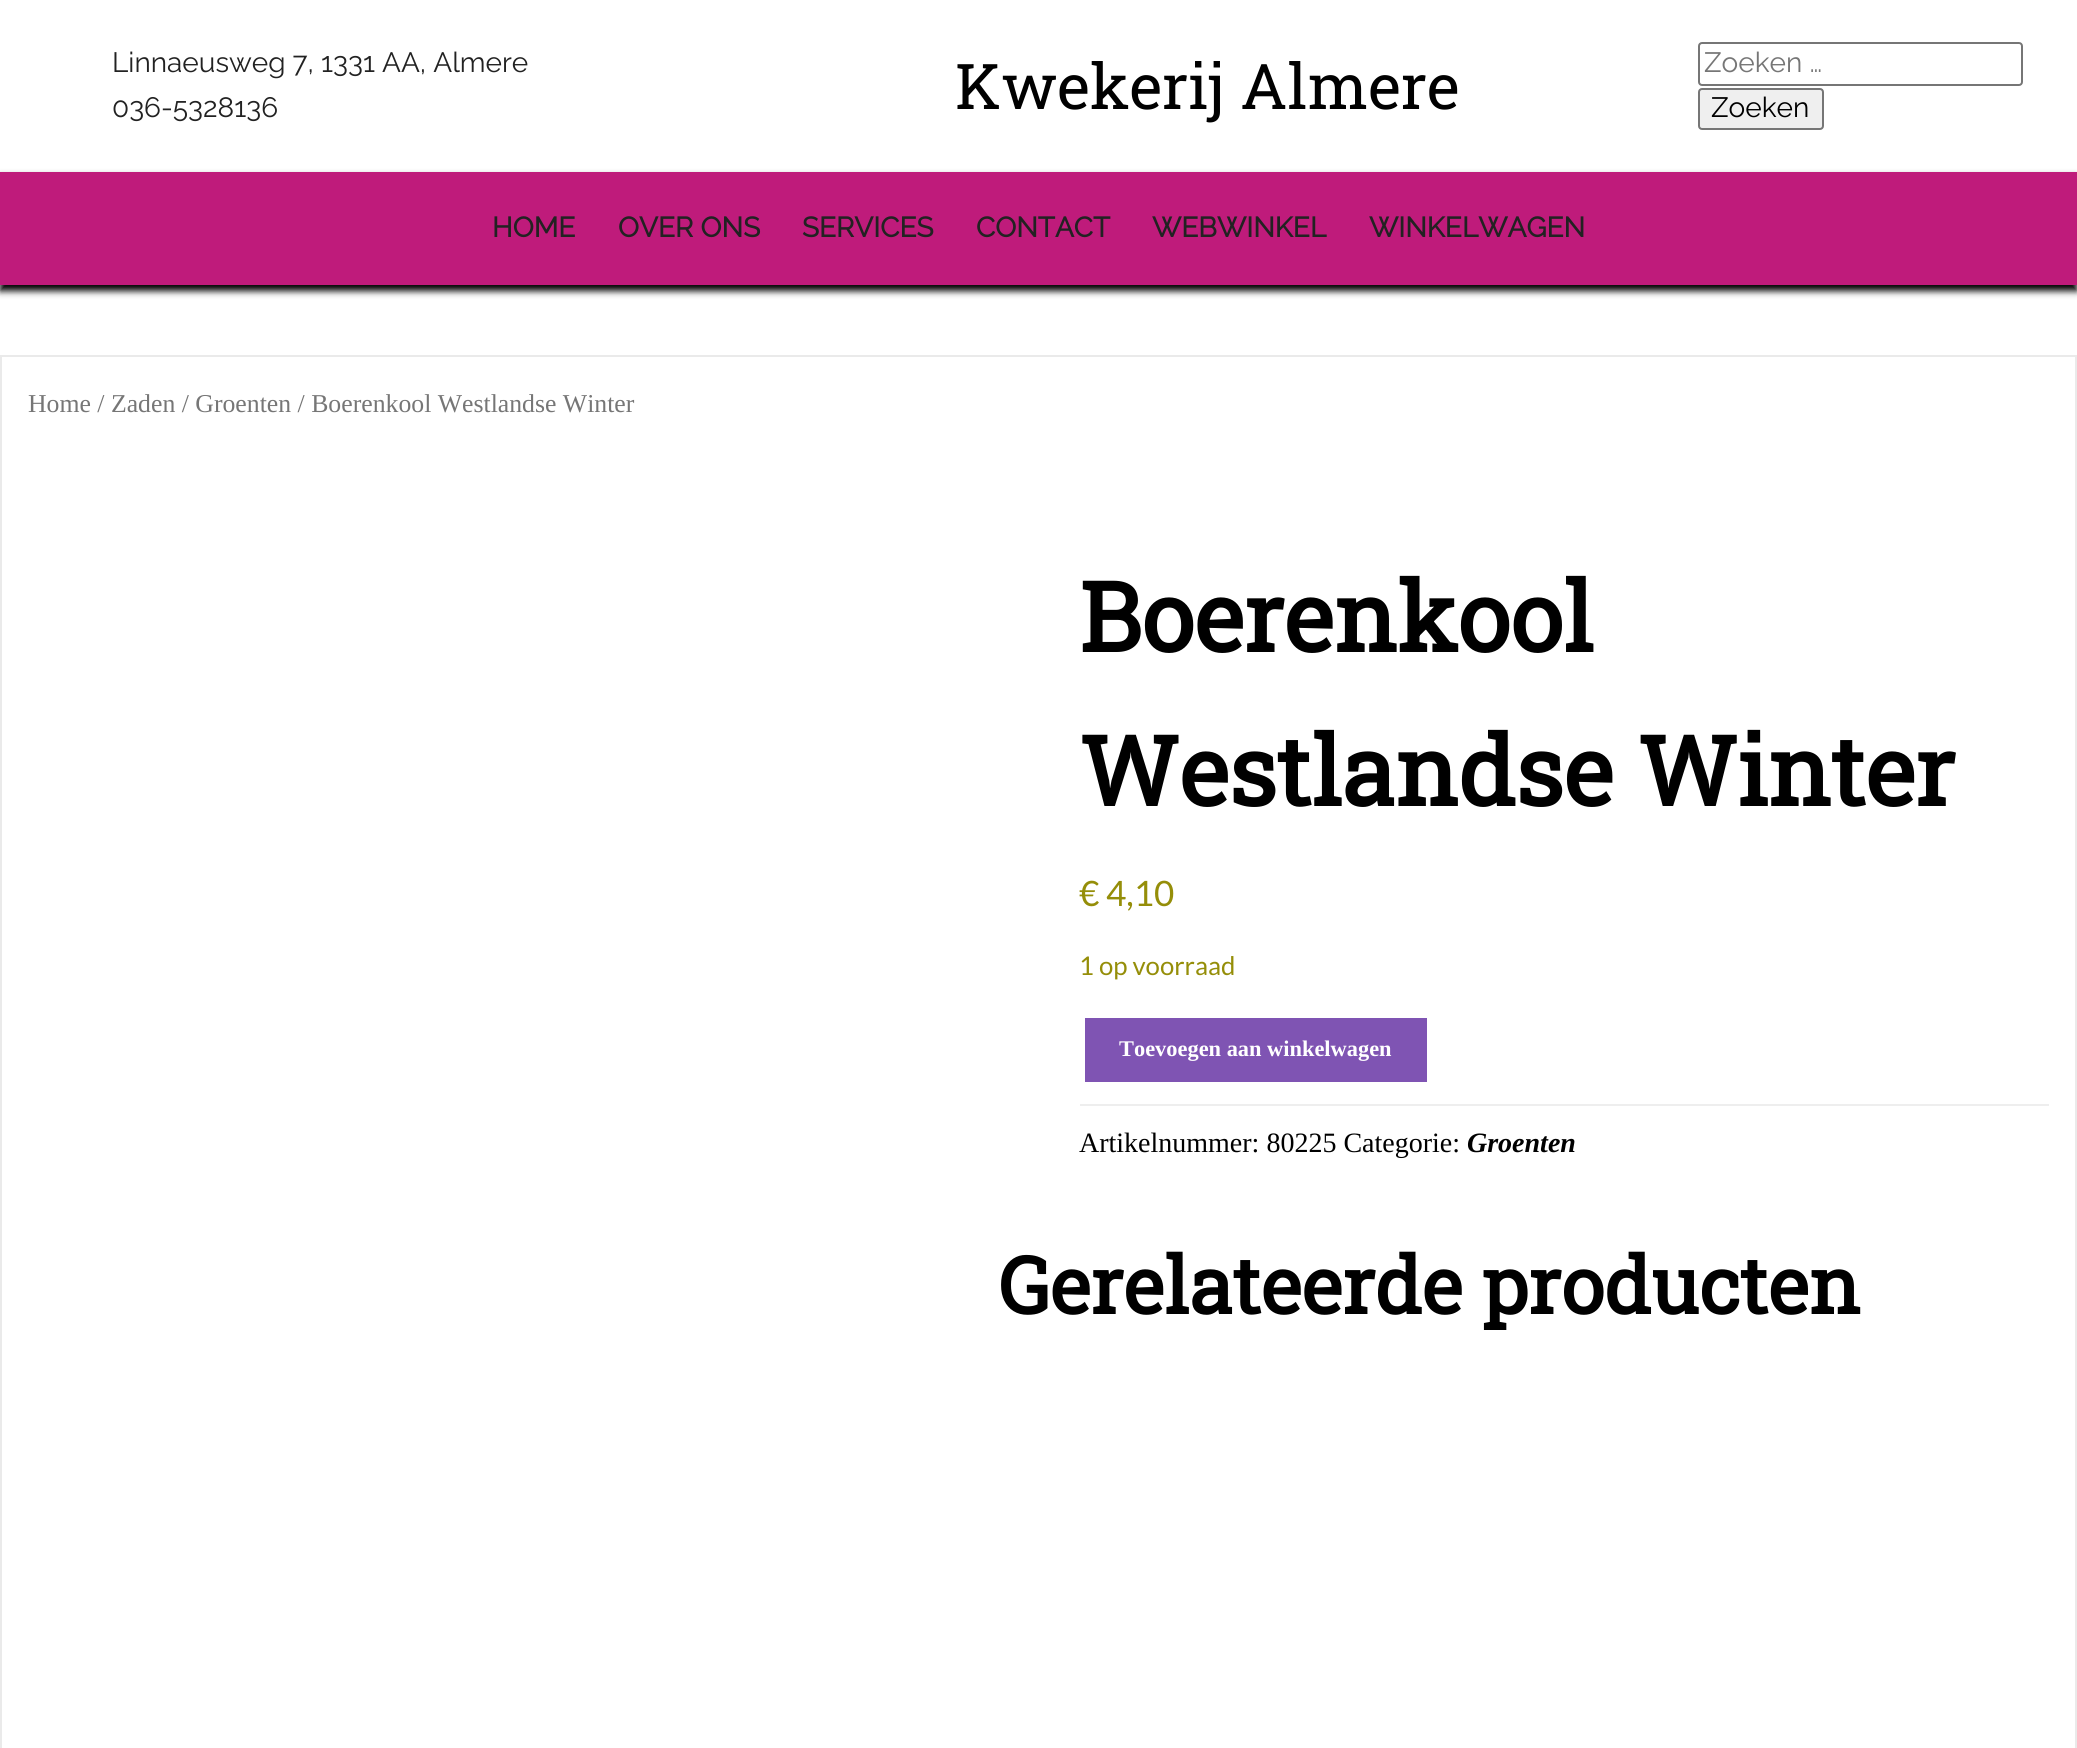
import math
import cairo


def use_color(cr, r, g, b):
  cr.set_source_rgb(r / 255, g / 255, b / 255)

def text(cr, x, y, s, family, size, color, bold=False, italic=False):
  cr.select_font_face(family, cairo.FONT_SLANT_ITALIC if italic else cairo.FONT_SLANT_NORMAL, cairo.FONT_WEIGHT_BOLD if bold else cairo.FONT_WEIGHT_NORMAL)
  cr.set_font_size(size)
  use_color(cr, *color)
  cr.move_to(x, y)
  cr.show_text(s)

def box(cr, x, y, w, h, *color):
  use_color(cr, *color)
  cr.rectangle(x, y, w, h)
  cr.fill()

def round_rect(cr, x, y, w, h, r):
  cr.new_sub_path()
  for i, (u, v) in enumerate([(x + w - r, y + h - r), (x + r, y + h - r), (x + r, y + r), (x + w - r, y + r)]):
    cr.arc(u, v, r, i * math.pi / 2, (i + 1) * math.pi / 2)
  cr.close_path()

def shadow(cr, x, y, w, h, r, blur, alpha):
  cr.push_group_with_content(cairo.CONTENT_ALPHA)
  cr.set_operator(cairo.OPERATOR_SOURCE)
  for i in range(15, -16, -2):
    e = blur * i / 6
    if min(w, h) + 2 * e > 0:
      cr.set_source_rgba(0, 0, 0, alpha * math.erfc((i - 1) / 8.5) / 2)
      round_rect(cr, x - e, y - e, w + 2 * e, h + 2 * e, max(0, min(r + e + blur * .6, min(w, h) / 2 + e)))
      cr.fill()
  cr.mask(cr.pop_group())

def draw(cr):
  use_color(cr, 255, 255, 255)
  cr.paint()
  round_rect(cr, 1699, 43, 323, 42, 3)
  use_color(cr, 118, 118, 118)
  cr.stroke()
  use_color(cr, 239, 239, 239)
  round_rect(cr, 1699, 89, 124, 40, 3)
  cr.fill_preserve()
  use_color(cr, 118, 118, 118)
  cr.stroke()
  use_color(cr, 0, 0, 0)
  shadow(cr, 0, 177, 2077, 114, 0, 3.5, 1)
  box(cr, 0, 172, 2077, 113, 191, 27, 123)
  cr.rectangle(1, 356, 2075, 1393)
  use_color(cr, 234, 234, 234)
  cr.stroke()
  box(cr, 1080, 1104, 969, 2, 238, 238, 238)
  use_color(cr, 127, 84, 179)
  round_rect(cr, 1082.5, 1015.5, 347, 69, 2.5)
  cr.fill_preserve()
  use_color(cr, 255, 255, 255)
  cr.set_line_width(5)
  cr.stroke()
  text(cr, 112, 72, "Linnaeusweg 7, 1331 AA, Almere", "Raleway Thin", 28, (34, 34, 34))
  text(cr, 112, 117, "036-5328136", "Raleway Thin", 28, (34, 34, 34))
  text(cr, 955, 109, "Kwekerij Almere", "Roboto Slab", 63, (0, 0, 0))
  text(cr, 1704, 72, "Zoeken …", "Raleway Thin", 28, (118, 118, 118))
  text(cr, 1711, 117, "Zoeken", "Raleway Thin", 28, (0, 0, 0))
  text(cr, 492, 237, "HOME", "Raleway", 28, (34, 34, 34), bold=True)
  text(cr, 618, 237, "OVER ONS", "Raleway", 28, (34, 34, 34), bold=True)
  text(cr, 802, 237, "SERVICES", "Raleway", 28, (34, 34, 34), bold=True)
  text(cr, 976, 237, "CONTACT", "Raleway", 28, (34, 34, 34), bold=True)
  text(cr, 1152, 237, "WEBWINKEL", "Raleway", 28, (34, 34, 34), bold=True)
  text(cr, 1369, 237, "WINKELWAGEN", "Raleway", 28, (34, 34, 34), bold=True)
  text(cr, 28, 412, "Home / Zaden / Groenten / Boerenkool Westlandse Winter", "Liberation Serif", 25.75, (118, 118, 118))
  text(cr, 1079, 652, "Boerenkool", "Roboto Slab", 96.25, (0, 0, 0), bold=True)
  text(cr, 1079, 806, "Westlandse Winter", "Roboto Slab", 96.25, (0, 0, 0), bold=True)
  text(cr, 1079, 906, "€ 4,10", "Lato", 35, (149, 142, 9))
  text(cr, 1079, 975, "1 op voorraad", "Lato", 25.75, (149, 142, 9))
  text(cr, 1119, 1056, "Toevoegen aan winkelwagen", "Liberation Serif", 22.4, (255, 255, 255), bold=True)
  text(cr, 1079, 1152, "Artikelnummer: 80225 Categorie:", "Liberation Serif", 28, (0, 0, 0))
  text(cr, 1467, 1152, "Groenten", "Liberation Serif", 28, (0, 0, 0), bold=True, italic=True)
  text(cr, 998, 1314, "Gerelateerde producten", "Roboto Slab", 78.75, (0, 0, 0), bold=True)


surface = cairo.ImageSurface(cairo.FORMAT_RGB24, 2077, 1748)
cr = cairo.Context(surface)
options = cairo.FontOptions()
options.set_hint_metrics(cairo.HINT_METRICS_OFF)
options.set_hint_style(cairo.HINT_STYLE_NONE)
cr.set_font_options(options)
cr.set_miter_limit(4)
draw(cr)
surface.write_to_png("out.png")
